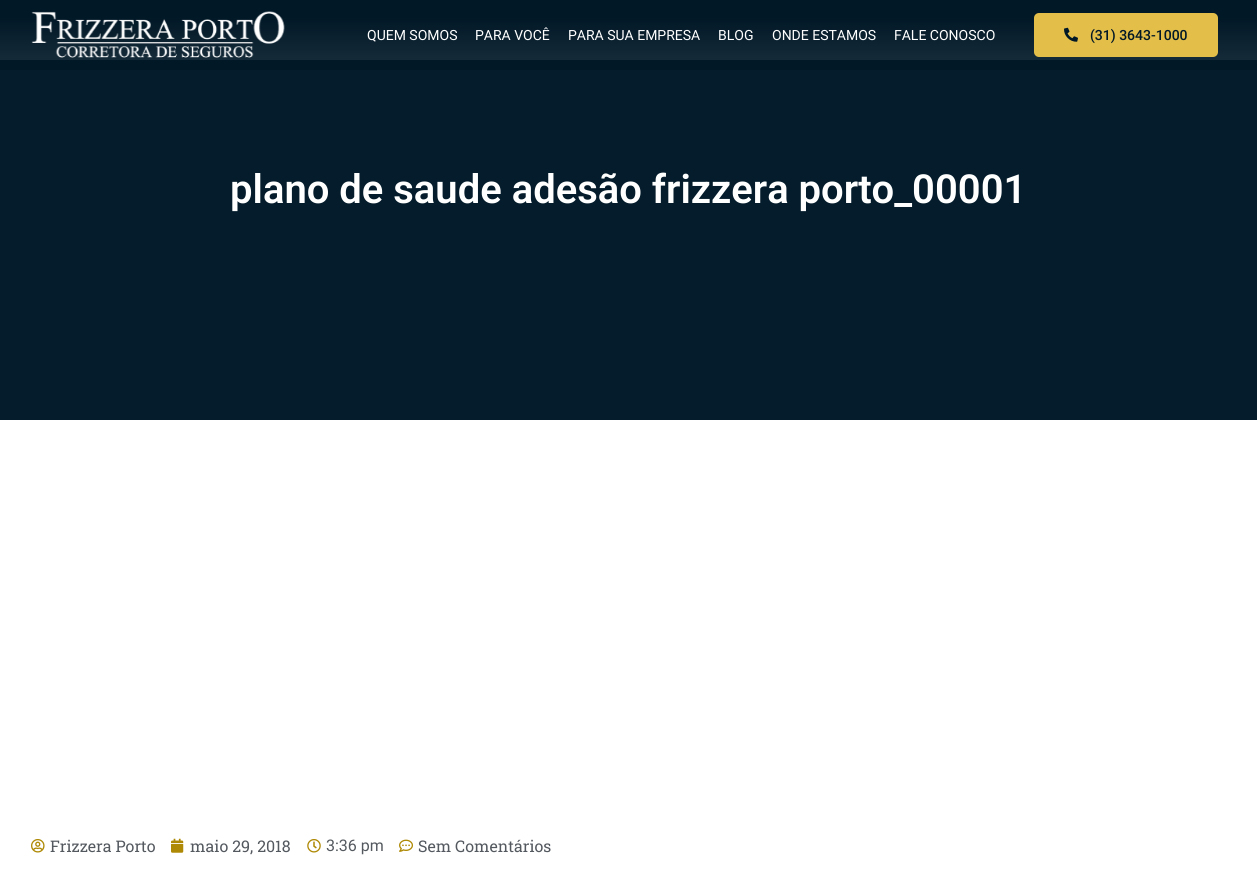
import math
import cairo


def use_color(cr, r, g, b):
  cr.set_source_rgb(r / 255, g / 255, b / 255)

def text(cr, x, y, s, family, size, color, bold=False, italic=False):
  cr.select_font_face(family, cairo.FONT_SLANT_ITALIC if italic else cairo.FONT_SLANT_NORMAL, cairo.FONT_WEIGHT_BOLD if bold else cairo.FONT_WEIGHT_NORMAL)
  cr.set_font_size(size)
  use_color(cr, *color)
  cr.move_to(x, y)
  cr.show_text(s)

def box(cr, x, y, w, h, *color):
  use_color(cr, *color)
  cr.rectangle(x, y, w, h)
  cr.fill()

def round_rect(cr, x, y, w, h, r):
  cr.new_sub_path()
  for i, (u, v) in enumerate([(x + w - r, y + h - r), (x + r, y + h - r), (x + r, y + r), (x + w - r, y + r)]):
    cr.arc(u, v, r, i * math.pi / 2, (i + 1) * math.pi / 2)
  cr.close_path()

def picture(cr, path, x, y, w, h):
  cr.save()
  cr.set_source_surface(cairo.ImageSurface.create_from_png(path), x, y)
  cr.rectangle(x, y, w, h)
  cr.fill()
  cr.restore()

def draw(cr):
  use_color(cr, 255, 255, 255)
  cr.paint()
  box(cr, 0, 19, 1257, 41, 26, 47, 61)
  gradient = cairo.LinearGradient(629, 0, 629, 70)
  gradient.add_color_stop_rgba(0.26, 0.004, 0.094, 0.153, 1)
  gradient.add_color_stop_rgba(1, 0.004, 0.094, 0.153, 0)
  cr.set_source(gradient)
  cr.rectangle(0, 0, 1257, 60)
  cr.fill()
  picture(cr, "img_01.png", 31, 11, 254, 47)
  use_color(cr, 227, 190, 72)
  round_rect(cr, 1034, 13, 184, 44, 5)
  cr.fill()
  picture(cr, "img_02.png", 1064, 27, 14, 15)
  box(cr, 0, 70, 1257, 350, 4, 28, 43)
  box(cr, 0, 60, 1257, 10, 1, 24, 39)
  picture(cr, "img_03.png", 31, 839, 14, 14)
  picture(cr, "img_04.png", 171, 838, 13, 15)
  picture(cr, "img_05.png", 307, 839, 14, 14)
  picture(cr, "img_06.png", 399, 839, 14, 13)
  text(cr, 367, 40, "QUEM SOMOS", "Roboto", 14, (255, 255, 255))
  text(cr, 475, 40, "PARA VOCÊ", "Roboto", 14, (255, 255, 255))
  text(cr, 568, 40, "PARA SUA EMPRESA", "Roboto", 14, (255, 255, 255))
  text(cr, 718, 40, "BLOG", "Roboto", 14, (255, 255, 255))
  text(cr, 772, 40, "ONDE ESTAMOS", "Roboto", 14, (255, 255, 255))
  text(cr, 894, 40, "FALE CONOSCO", "Roboto", 14, (255, 255, 255))
  text(cr, 1090, 40, "(31) 3643-1000", "Roboto Medium", 14, (1, 24, 39))
  text(cr, 230, 203, "plano de saude adesão frizzera porto_00001", "Roboto SemiBold", 40, (255, 255, 255))
  text(cr, 50, 852, "Frizzera Porto", "Roboto Slab", 16, (84, 89, 95))
  text(cr, 190, 852, "maio 29, 2018", "Roboto Slab", 16, (84, 89, 95))
  text(cr, 326, 851, "3:36 pm", "Roboto", 16, (84, 89, 95))
  text(cr, 418, 852, "Sem Comentários", "Roboto Slab", 16, (84, 89, 95))


surface = cairo.ImageSurface(cairo.FORMAT_RGB24, 1257, 881)
cr = cairo.Context(surface)
options = cairo.FontOptions()
options.set_hint_metrics(cairo.HINT_METRICS_OFF)
options.set_hint_style(cairo.HINT_STYLE_NONE)
cr.set_font_options(options)
cr.set_miter_limit(4)
draw(cr)
surface.write_to_png("out.png")
